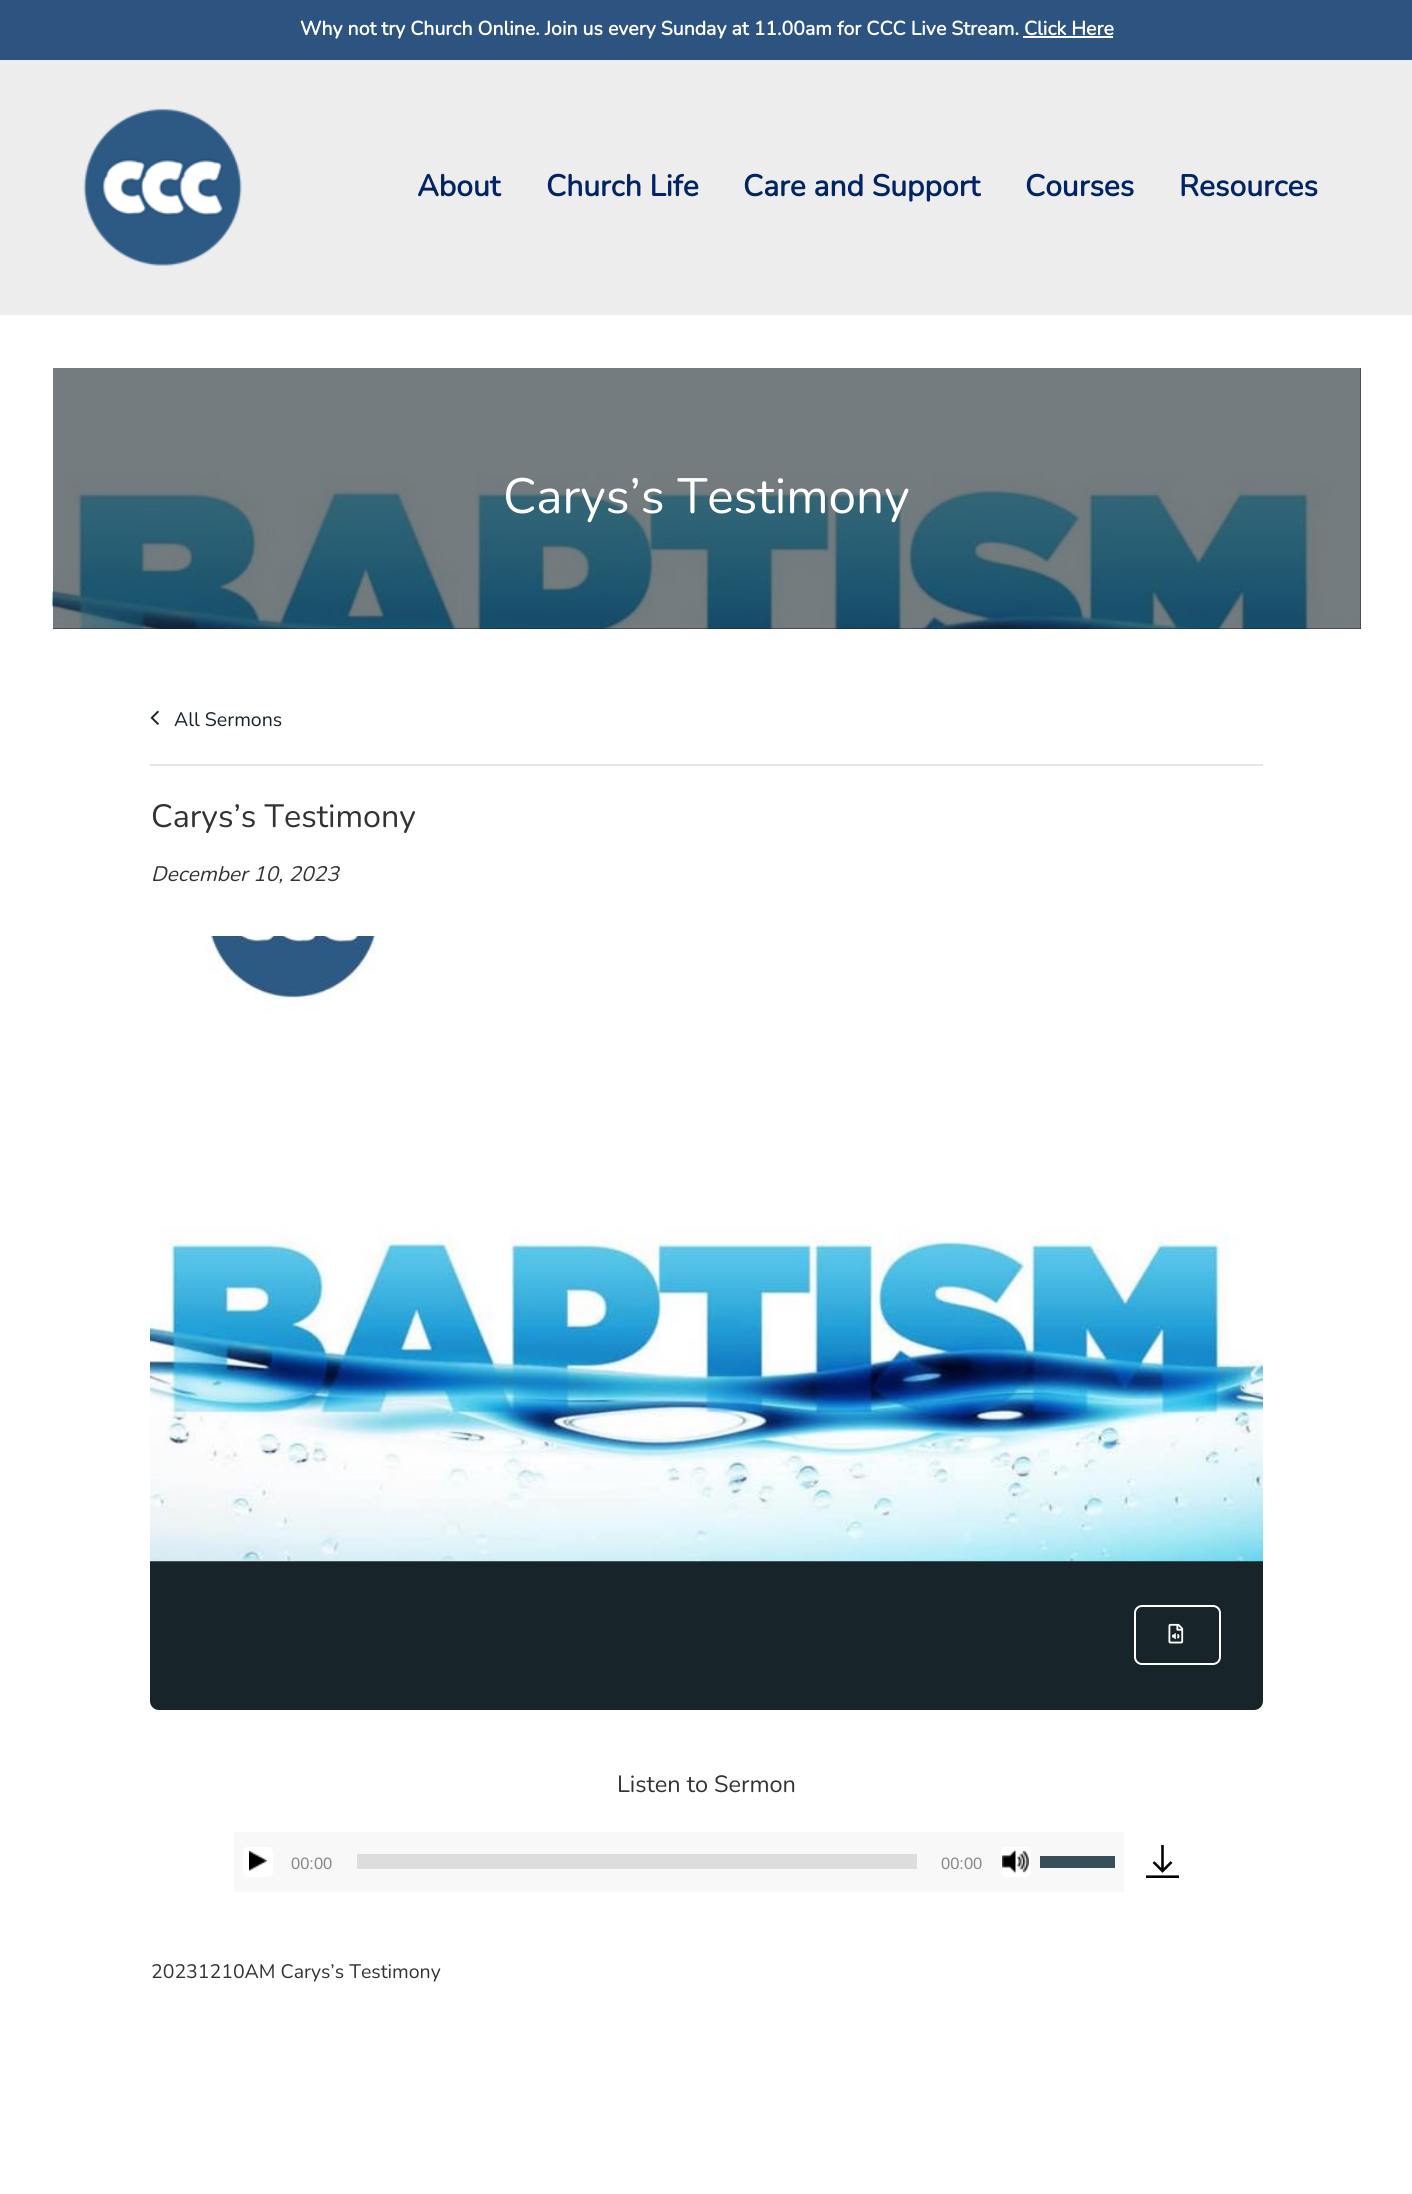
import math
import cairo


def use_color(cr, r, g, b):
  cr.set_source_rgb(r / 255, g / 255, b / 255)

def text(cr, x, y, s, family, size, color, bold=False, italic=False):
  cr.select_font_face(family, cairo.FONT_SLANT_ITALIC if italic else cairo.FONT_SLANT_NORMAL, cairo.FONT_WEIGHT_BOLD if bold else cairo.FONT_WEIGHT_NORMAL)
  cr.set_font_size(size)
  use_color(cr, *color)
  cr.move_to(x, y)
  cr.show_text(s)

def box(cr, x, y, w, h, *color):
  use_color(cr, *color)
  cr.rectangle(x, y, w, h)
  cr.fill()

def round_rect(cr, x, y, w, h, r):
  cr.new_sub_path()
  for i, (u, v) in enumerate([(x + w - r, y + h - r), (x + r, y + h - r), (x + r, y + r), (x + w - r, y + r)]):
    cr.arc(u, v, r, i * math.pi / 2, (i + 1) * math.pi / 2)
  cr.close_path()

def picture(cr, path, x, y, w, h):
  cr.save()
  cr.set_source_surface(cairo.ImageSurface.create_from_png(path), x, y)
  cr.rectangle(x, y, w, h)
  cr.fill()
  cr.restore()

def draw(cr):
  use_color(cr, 255, 255, 255)
  cr.paint()
  box(cr, 0, 0, 1412, 60, 45, 84, 129)
  box(cr, 1023, 36, 90, 2, 255, 255, 255)
  box(cr, 0, 60, 1412, 255, 237, 237, 237)
  picture(cr, "img_01.png", 83, 108, 159, 158)
  box(cr, 53, 368, 1308, 261, 23, 36, 42)
  picture(cr, "img_02.png", 52, 368, 1309, 261)
  box(cr, 150, 764, 1113, 2, 233, 229, 222)
  picture(cr, "img_03.png", 150, 710, 9, 15)
  use_color(cr, 23, 36, 42)
  cr.new_path()
  cr.move_to(150, 1560)
  cr.line_to(1263, 1560)
  cr.line_to(1263, 1701)
  cr.curve_to(1263, 1706, 1259, 1710, 1254, 1710)
  cr.line_to(159, 1710)
  cr.curve_to(154, 1710, 150, 1706, 150, 1701)
  cr.close_path()
  cr.fill()
  picture(cr, "img_04.png", 150, 936, 1113, 626)
  round_rect(cr, 1135, 1606, 85, 58, 7)
  use_color(cr, 255, 255, 255)
  cr.stroke()
  picture(cr, "img_05.png", 1168, 1623, 16, 21)
  box(cr, 234, 1832, 890, 60, 248, 248, 248)
  use_color(cr, 255, 255, 255)
  round_rect(cr, 243, 1847, 30, 30, 5)
  cr.fill()
  picture(cr, "img_06.png", 249, 1851, 18, 20)
  box(cr, 357, 1854, 560, 15, 221, 221, 221)
  use_color(cr, 255, 255, 255)
  round_rect(cr, 1001, 1847, 30, 30, 5)
  cr.fill()
  picture(cr, "img_07.png", 1002, 1849, 27, 25)
  box(cr, 1040, 1856, 75, 12, 56, 78, 88)
  picture(cr, "img_08.png", 1146, 1845, 33, 33)
  text(cr, 300, 35, "Why not try Church Online. Join us every Sunday at 11.00am for CCC Live Stream. Click Here", "Nunito", 19.5, (255, 255, 255), bold=True)
  text(cr, 417, 196, "About", "Nunito", 30, (1, 36, 102), bold=True)
  text(cr, 546, 196, "Church Life", "Nunito", 30, (1, 36, 102), bold=True)
  text(cr, 743, 196, "Care and Support", "Nunito", 30, (1, 36, 102), bold=True)
  text(cr, 1025, 196, "Courses", "Nunito", 30, (1, 36, 102), bold=True)
  text(cr, 1179, 196, "Resources", "Nunito", 30, (1, 36, 102), bold=True)
  text(cr, 503, 513, "Carys’s Testimony", "Nunito ExtraLight", 49.5, (255, 255, 255))
  text(cr, 174, 726, "All Sermons", "Nunito ExtraLight", 19.5, (23, 36, 42))
  text(cr, 151, 827, "Carys’s Testimony", "Nunito ExtraLight", 32.25, (51, 51, 51))
  text(cr, 151, 881, "December 10, 2023", "Nunito ExtraLight", 21, (51, 51, 51), italic=True)
  text(cr, 617, 1792, "Listen to Sermon", "Nunito ExtraLight", 23.5, (51, 51, 51))
  text(cr, 291, 1869, "00:00", "Liberation Sans", 16.5, (136, 136, 136))
  text(cr, 941, 1869, "00:00", "Liberation Sans", 16.5, (136, 136, 136))
  text(cr, 151, 1978, "20231210AM Carys’s Testimony", "Nunito ExtraLight", 19.5, (51, 51, 51))


surface = cairo.ImageSurface(cairo.FORMAT_RGB24, 1412, 2194)
cr = cairo.Context(surface)
options = cairo.FontOptions()
options.set_hint_metrics(cairo.HINT_METRICS_OFF)
options.set_hint_style(cairo.HINT_STYLE_NONE)
cr.set_font_options(options)
cr.set_miter_limit(4)
draw(cr)
surface.write_to_png("out.png")
